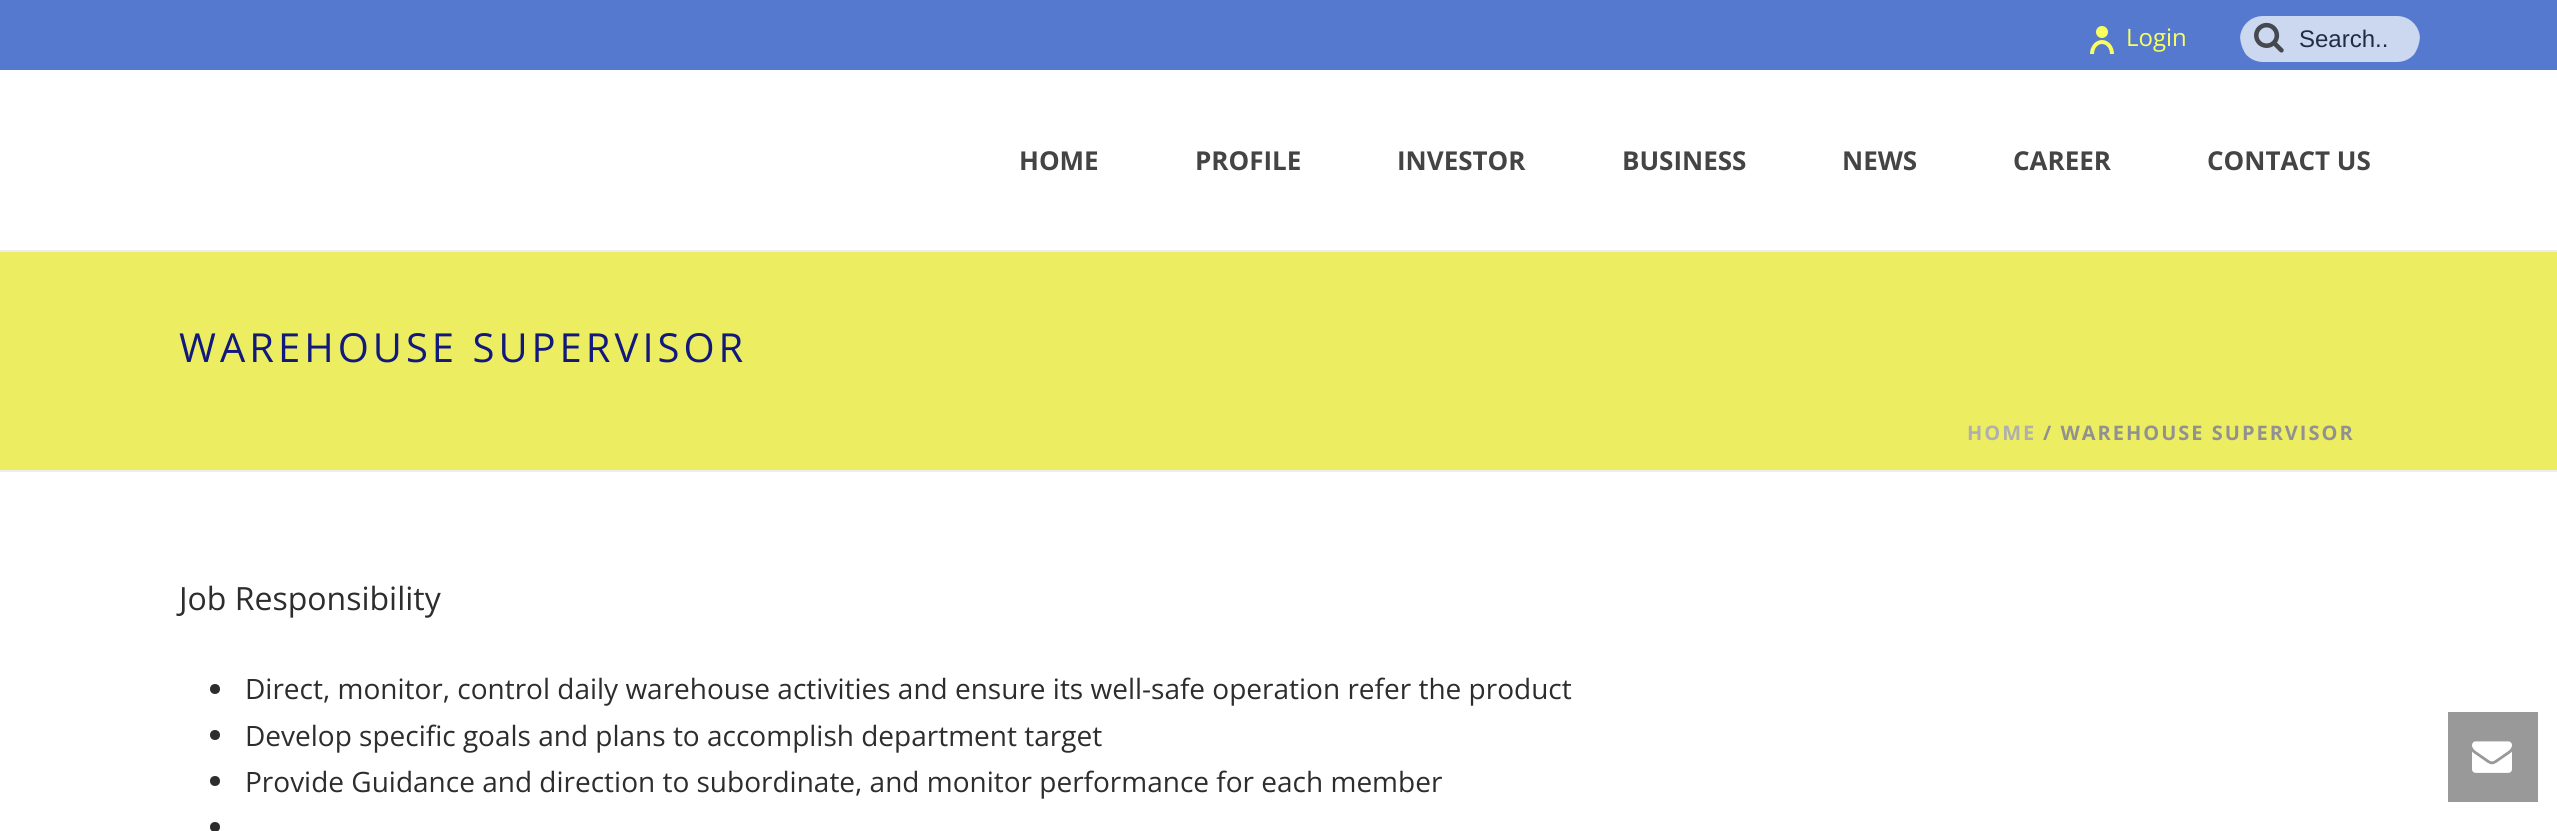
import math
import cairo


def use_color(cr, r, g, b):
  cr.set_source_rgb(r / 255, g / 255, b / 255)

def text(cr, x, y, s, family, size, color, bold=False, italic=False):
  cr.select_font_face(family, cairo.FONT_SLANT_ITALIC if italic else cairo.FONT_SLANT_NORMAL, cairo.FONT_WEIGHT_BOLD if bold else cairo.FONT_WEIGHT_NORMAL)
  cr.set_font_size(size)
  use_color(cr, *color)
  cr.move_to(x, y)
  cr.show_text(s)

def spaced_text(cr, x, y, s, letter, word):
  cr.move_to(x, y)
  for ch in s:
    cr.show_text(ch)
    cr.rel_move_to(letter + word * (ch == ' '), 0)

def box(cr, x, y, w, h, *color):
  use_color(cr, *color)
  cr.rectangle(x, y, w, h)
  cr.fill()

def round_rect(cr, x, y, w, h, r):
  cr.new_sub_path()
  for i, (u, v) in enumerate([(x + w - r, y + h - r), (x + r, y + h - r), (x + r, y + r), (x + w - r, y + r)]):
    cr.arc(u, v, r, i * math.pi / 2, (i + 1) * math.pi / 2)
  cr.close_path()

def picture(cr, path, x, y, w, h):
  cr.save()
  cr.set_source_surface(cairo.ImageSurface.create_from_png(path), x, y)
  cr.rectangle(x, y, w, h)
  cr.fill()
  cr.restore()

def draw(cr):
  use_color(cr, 255, 255, 255)
  cr.paint()
  box(cr, 0, 252, 2557, 218, 237, 237, 97)
  box(cr, 0, 470, 2557, 2, 237, 237, 237)
  box(cr, 0, 0, 2557, 70, 84, 121, 206)
  picture(cr, "img_01.png", 2090, 26, 24, 28)
  cr.save()
  round_rect(cr, 2240, 0, 180, 70, 35)
  cr.clip()
  use_color(cr, 204, 215, 240)
  round_rect(cr, 2240, 16, 180, 46, 23)
  cr.fill()
  cr.restore()
  picture(cr, "img_02.png", 2254, 22, 30, 31)
  box(cr, 0, 250, 2557, 2, 237, 237, 237)
  use_color(cr, 45, 45, 45)
  cr.arc(215, 689, 5, 0, 2 * math.pi)
  cr.fill()
  cr.arc(215, 735, 5, 0, 2 * math.pi)
  cr.fill()
  cr.arc(215, 781, 5, 0, 2 * math.pi)
  cr.fill()
  cr.arc(215, 827, 5, 0, 2 * math.pi)
  cr.fill()
  box(cr, 2448, 712, 90, 90, 153, 153, 153)
  picture(cr, "img_03.png", 2472, 741, 40, 32)
  text(cr, 2126, 46, "Login", "Open Sans", 24, (249, 255, 94))
  text(cr, 2299, 47, "Search..", "Liberation Sans", 24, (32, 43, 69))
  text(cr, 1019, 170, "HOME", "Open Sans", 26, (68, 68, 68), bold=True)
  text(cr, 1195, 170, "PROFILE", "Open Sans", 26, (68, 68, 68), bold=True)
  text(cr, 1397, 170, "INVESTOR", "Open Sans", 26, (68, 68, 68), bold=True)
  text(cr, 1622, 170, "BUSINESS", "Open Sans", 26, (68, 68, 68), bold=True)
  text(cr, 1842, 170, "NEWS", "Open Sans", 26, (68, 68, 68), bold=True)
  text(cr, 2013, 170, "CAREER", "Open Sans", 26, (68, 68, 68), bold=True)
  text(cr, 2207, 170, "CONTACT US", "Open Sans", 26, (68, 68, 68), bold=True)
  cr.select_font_face("Open Sans")
  cr.set_font_size(40)
  use_color(cr, 18, 25, 124)
  spaced_text(cr, 179, 362, "WAREHOUSE SUPERVISOR", 4, 0)
  cr.select_font_face("Open Sans", cairo.FONT_SLANT_NORMAL, cairo.FONT_WEIGHT_BOLD)
  cr.set_font_size(20)
  use_color(cr, 175, 175, 175)
  spaced_text(cr, 1967, 440, "HOME", 2, 0)
  use_color(cr, 145, 145, 145)
  spaced_text(cr, 2043, 440, "/ WAREHOUSE SUPERVISOR", 2, 0)
  text(cr, 179, 610, "Job Responsibility", "Open Sans", 32, (45, 45, 45))
  text(cr, 245, 699, "Direct, monitor, control daily warehouse activities and ensure its well-safe operation refer the product", "Open Sans", 28, (45, 45, 45))
  text(cr, 245, 746, "Develop specific goals and plans to accomplish department target", "Open Sans", 28, (45, 45, 45))
  text(cr, 245, 792, "Provide Guidance and direction to subordinate, and monitor performance for each member", "Open Sans", 28, (45, 45, 45))


surface = cairo.ImageSurface(cairo.FORMAT_RGB24, 2557, 831)
cr = cairo.Context(surface)
options = cairo.FontOptions()
options.set_hint_metrics(cairo.HINT_METRICS_OFF)
options.set_hint_style(cairo.HINT_STYLE_NONE)
cr.set_font_options(options)
cr.set_miter_limit(4)
draw(cr)
surface.write_to_png("out.png")
